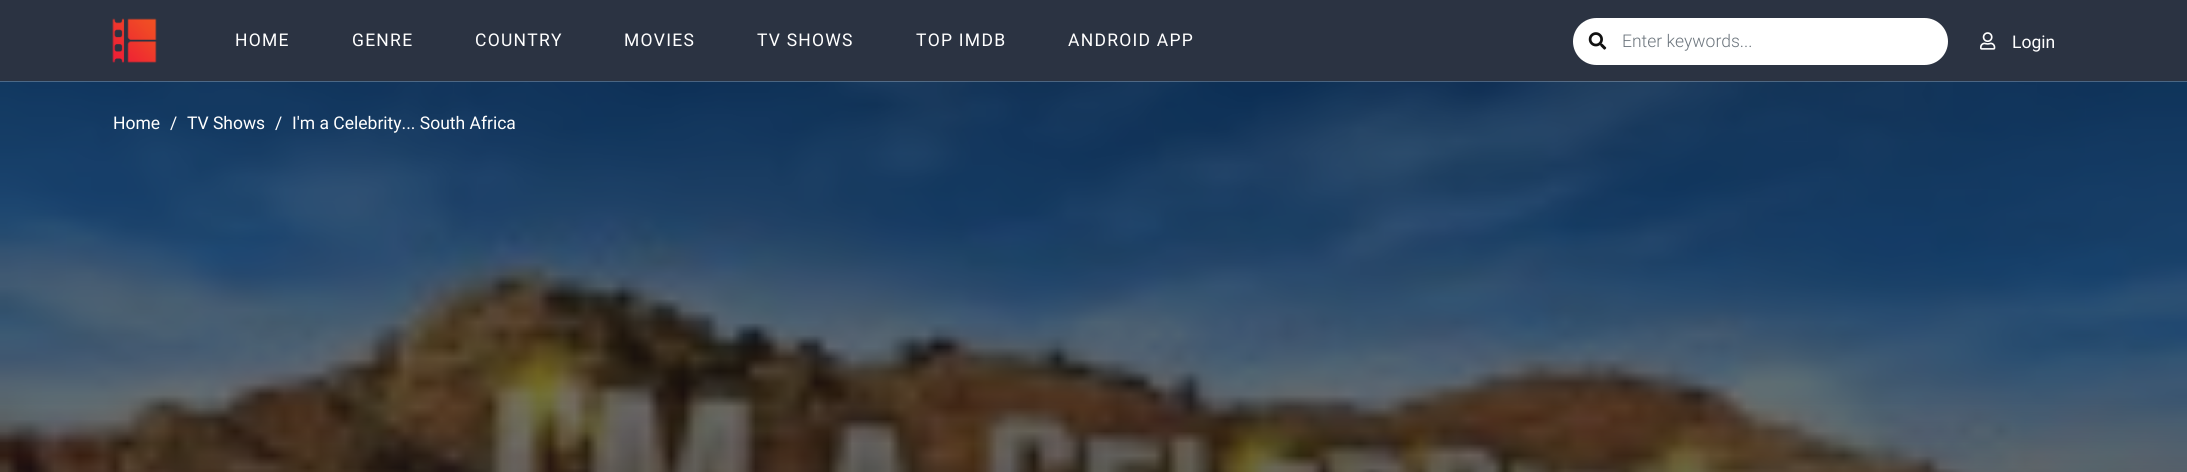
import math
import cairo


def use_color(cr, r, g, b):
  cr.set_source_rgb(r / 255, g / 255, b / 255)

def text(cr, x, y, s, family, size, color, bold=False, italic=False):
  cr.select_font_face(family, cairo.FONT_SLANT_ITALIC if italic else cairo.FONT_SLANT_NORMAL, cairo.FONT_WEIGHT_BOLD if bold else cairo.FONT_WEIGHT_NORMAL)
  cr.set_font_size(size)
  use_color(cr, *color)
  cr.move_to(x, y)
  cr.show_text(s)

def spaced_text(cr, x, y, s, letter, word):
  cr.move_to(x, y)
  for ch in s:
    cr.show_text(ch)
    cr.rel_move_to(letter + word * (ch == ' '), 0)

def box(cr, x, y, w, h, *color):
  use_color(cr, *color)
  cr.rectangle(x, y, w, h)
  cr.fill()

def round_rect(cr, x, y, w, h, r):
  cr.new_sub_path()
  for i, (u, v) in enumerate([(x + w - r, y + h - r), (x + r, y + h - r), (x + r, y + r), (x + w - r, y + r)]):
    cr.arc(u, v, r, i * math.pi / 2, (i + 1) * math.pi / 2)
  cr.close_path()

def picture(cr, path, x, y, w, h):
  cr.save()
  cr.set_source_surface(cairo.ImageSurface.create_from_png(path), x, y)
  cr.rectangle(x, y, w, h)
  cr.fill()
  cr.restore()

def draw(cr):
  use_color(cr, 255, 255, 255)
  cr.paint()
  box(cr, 0, 0, 2187, 81, 43, 51, 66)
  picture(cr, "img_01.png", 112, 18, 45, 45)
  use_color(cr, 255, 255, 255)
  round_rect(cr, 1573, 18, 375, 47, 23.5)
  cr.fill()
  picture(cr, "img_02.png", 1588, 32, 19, 18)
  picture(cr, "img_03.png", 1980, 32, 16, 18)
  picture(cr, "img_04.png", 0, 81, 2187, 391)
  cr.select_font_face("Roboto")
  cr.set_font_size(17.5)
  spaced_text(cr, 235, 46, "HOME", 1.25, 0)
  spaced_text(cr, 352, 46, "GENRE", 1.25, 0)
  spaced_text(cr, 475, 46, "COUNTRY", 1.25, 0)
  spaced_text(cr, 624, 46, "MOVIES", 1.25, 0)
  spaced_text(cr, 757, 46, "TV SHOWS", 1.25, 0)
  spaced_text(cr, 916, 46, "TOP IMDB", 1.25, 0)
  spaced_text(cr, 1068, 46, "ANDROID APP", 1.25, 0)
  text(cr, 1622, 47, "Enter keywords...", "Roboto Light", 17.5, (108, 117, 125))
  text(cr, 2012, 48, "Login", "Roboto", 17.5, (255, 255, 255))
  text(cr, 113, 129, "Home", "Roboto", 17.5, (255, 255, 255))
  text(cr, 170, 129, "/", "Roboto", 17.5, (255, 255, 255))
  text(cr, 187, 129, "TV Shows", "Roboto", 17.5, (255, 255, 255))
  text(cr, 275, 129, "/", "Roboto", 17.5, (255, 255, 255))
  text(cr, 292, 129, "I'm a Celebrity... South Africa", "Roboto", 17.5, (255, 255, 255))


surface = cairo.ImageSurface(cairo.FORMAT_RGB24, 2187, 472)
cr = cairo.Context(surface)
options = cairo.FontOptions()
options.set_hint_metrics(cairo.HINT_METRICS_OFF)
options.set_hint_style(cairo.HINT_STYLE_NONE)
cr.set_font_options(options)
cr.set_miter_limit(4)
draw(cr)
surface.write_to_png("out.png")
